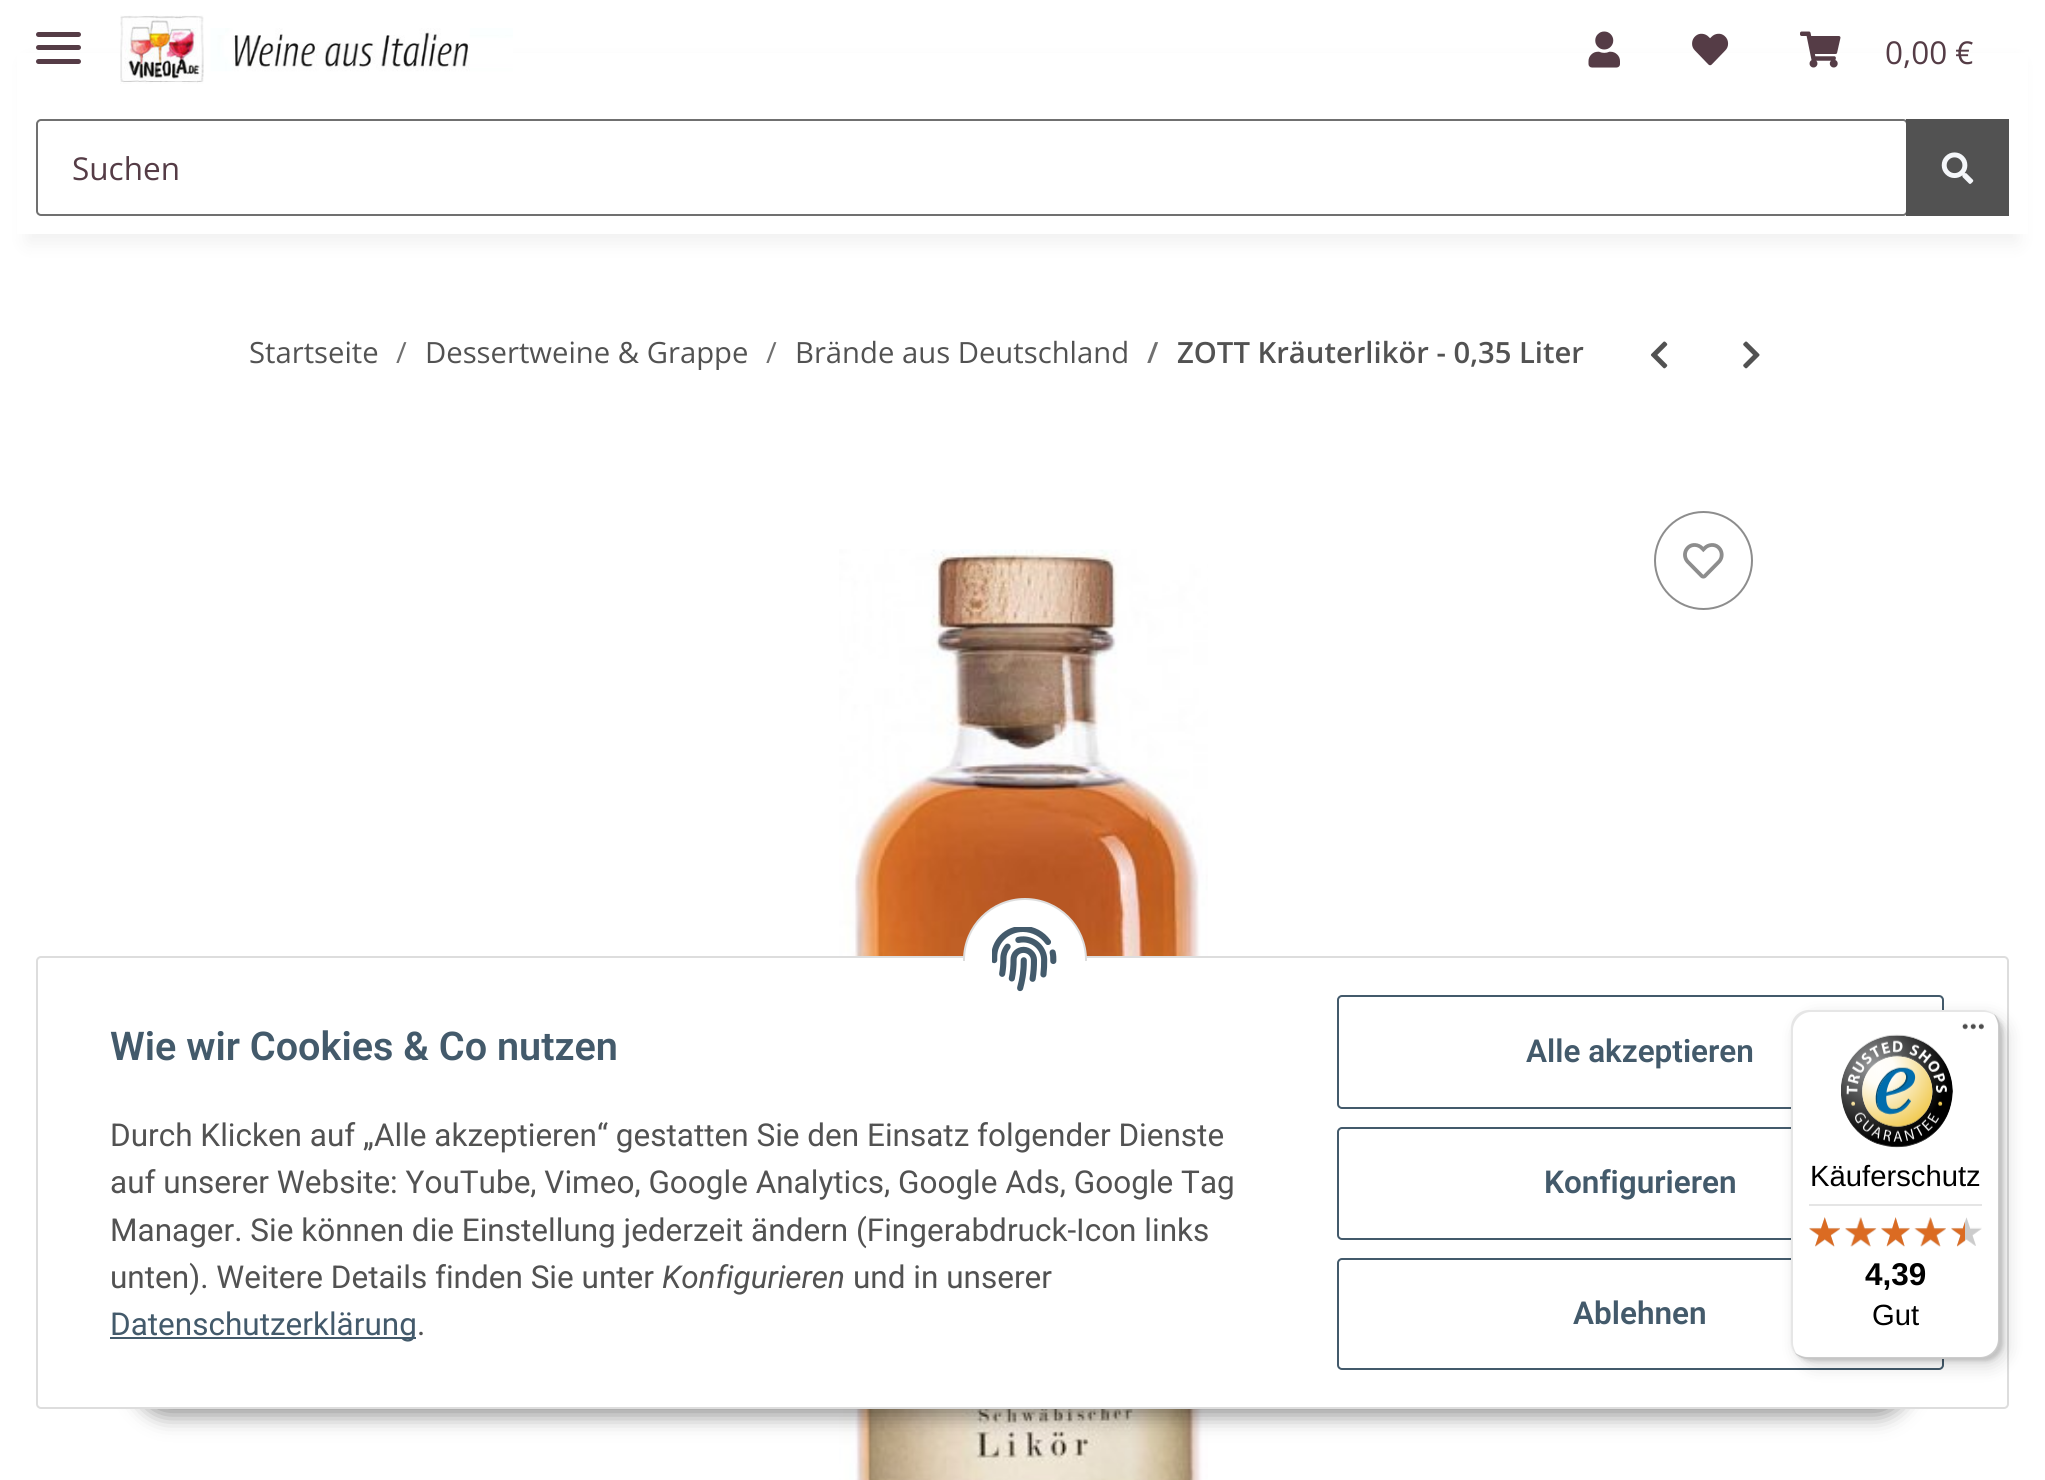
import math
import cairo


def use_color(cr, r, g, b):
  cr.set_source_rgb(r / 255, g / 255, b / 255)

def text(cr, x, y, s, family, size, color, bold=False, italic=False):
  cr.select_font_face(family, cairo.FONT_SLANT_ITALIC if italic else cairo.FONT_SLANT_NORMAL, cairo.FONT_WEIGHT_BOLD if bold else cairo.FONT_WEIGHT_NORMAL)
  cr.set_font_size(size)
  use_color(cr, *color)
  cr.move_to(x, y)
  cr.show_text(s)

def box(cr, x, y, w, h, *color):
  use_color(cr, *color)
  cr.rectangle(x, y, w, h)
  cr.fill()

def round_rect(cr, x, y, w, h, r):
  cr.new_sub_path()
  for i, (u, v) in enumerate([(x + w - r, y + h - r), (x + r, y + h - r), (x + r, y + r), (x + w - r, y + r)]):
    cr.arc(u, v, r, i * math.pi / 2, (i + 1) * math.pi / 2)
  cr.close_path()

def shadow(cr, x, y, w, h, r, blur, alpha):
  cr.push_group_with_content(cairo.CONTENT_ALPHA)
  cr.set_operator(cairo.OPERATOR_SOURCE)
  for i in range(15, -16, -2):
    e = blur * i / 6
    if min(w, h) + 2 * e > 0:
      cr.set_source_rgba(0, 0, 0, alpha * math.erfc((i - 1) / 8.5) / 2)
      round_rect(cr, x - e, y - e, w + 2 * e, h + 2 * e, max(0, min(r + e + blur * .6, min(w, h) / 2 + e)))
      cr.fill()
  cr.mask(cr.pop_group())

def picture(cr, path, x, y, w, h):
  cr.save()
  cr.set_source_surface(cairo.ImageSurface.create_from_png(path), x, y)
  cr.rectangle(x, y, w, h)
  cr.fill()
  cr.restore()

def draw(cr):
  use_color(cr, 255, 255, 255)
  cr.paint()
  use_color(cr, 0, 0, 0)
  shadow(cr, 27, 63, 1991, 180, 0, 10, 0.06)
  box(cr, 17, 53, 2011, 181, 255, 255, 255)
  use_color(cr, 85, 60, 70)
  round_rect(cr, 36, 45, 45, 5, 2.5)
  cr.fill()
  round_rect(cr, 36, 32, 45, 5, 2.5)
  cr.fill()
  round_rect(cr, 36, 59, 45, 5, 2.5)
  cr.fill()
  picture(cr, "img_01.png", 120, 15, 393, 69)
  picture(cr, "img_02.png", 1588, 31, 32, 37)
  picture(cr, "img_03.png", 1692, 33, 37, 33)
  picture(cr, "img_04.png", 1800, 31, 41, 37)
  round_rect(cr, 37, 120, 1870, 95, 4)
  use_color(cr, 112, 112, 112)
  cr.stroke()
  box(cr, 1906, 119, 103, 97, 82, 82, 82)
  picture(cr, "img_05.png", 1941, 152, 33, 32)
  picture(cr, "img_06.png", 1650, 341, 18, 28)
  picture(cr, "img_07.png", 1743, 341, 17, 28)
  picture(cr, "img_08.png", 839, 549, 369, 931)
  cr.arc(1703.5, 560.5, 48.5, 0, 2 * math.pi)
  use_color(cr, 141, 141, 141)
  cr.stroke()
  picture(cr, "img_09.png", 1683, 543, 41, 36)
  use_color(cr, 0, 0, 0)
  shadow(cr, 137, 1343, 1771, 72, 36, 11, 0.45)
  use_color(cr, 255, 255, 255)
  round_rect(cr, 37, 957, 1971, 451, 4)
  cr.fill_preserve()
  use_color(cr, 221, 221, 221)
  cr.stroke()
  use_color(cr, 255, 255, 255)
  cr.arc(1025, 960, 61, 0, 2 * math.pi)
  cr.fill_preserve()
  use_color(cr, 221, 221, 221)
  cr.stroke()
  box(cr, 963, 961, 124, 61, 255, 255, 255)
  picture(cr, "img_10.png", 992, 927, 65, 65)
  box(cr, 110, 1337, 306, 2, 67, 90, 107)
  round_rect(cr, 1338, 996, 605, 112, 4)
  cr.stroke()
  round_rect(cr, 1338, 1128, 605, 111, 4)
  cr.stroke()
  round_rect(cr, 1338, 1259, 605, 110, 4)
  cr.stroke()
  use_color(cr, 0, 0, 0)
  shadow(cr, 1798, 1017, 209, 349, 18, 9, 0.15)
  shadow(cr, 1793, 1013, 210, 348, 18, 2, 0.15)
  use_color(cr, 255, 255, 255)
  round_rect(cr, 1791, 1010, 209, 349, 18)
  cr.fill()
  cr.set_source_rgba(0, 0, 0, 0.1)
  cr.new_path()
  cr.move_to(1811, 1012)
  cr.line_to(1984, 1012)
  cr.curve_to(1989, 1012, 1993, 1014, 1997, 1017)
  cr.curve_to(1993, 1013, 1988, 1010, 1982, 1010)
  cr.line_to(1809, 1010)
  cr.curve_to(1799, 1010, 1791, 1018, 1791, 1028)
  cr.line_to(1791, 1341)
  cr.curve_to(1791, 1346, 1793, 1351, 1797, 1355)
  cr.curve_to(1795, 1351, 1793, 1347, 1793, 1343)
  cr.line_to(1793, 1030)
  cr.curve_to(1793, 1021, 1801, 1012, 1811, 1012)
  cr.close_path()
  cr.fill()
  cr.set_source_rgba(0, 0, 0, 0.2)
  cr.new_path()
  cr.move_to(1795, 1353)
  cr.curve_to(1799, 1357, 1804, 1359, 1809, 1359)
  cr.line_to(1982, 1359)
  cr.curve_to(1992, 1359, 2000, 1351, 2000, 1341)
  cr.line_to(2000, 1028)
  cr.curve_to(2000, 1023, 1998, 1018, 1994, 1014)
  cr.curve_to(1996, 1018, 1998, 1022, 1998, 1026)
  cr.line_to(1998, 1339)
  cr.curve_to(1998, 1349, 1990, 1357, 1980, 1357)
  cr.line_to(1807, 1357)
  cr.curve_to(1803, 1357, 1799, 1355, 1795, 1353)
  cr.close_path()
  cr.fill()
  cr.set_source_rgba(0.196, 0.196, 0.196, 0.2)
  cr.new_path()
  cr.move_to(1796, 1354)
  cr.curve_to(1799, 1357, 1804, 1359, 1809, 1359)
  cr.line_to(1982, 1359)
  cr.curve_to(1992, 1359, 2000, 1351, 2000, 1341)
  cr.line_to(2000, 1028)
  cr.curve_to(2000, 1023, 1998, 1018, 1995, 1015)
  cr.curve_to(1997, 1018, 1999, 1022, 1999, 1027)
  cr.line_to(1999, 1340)
  cr.curve_to(1999, 1350, 1991, 1358, 1981, 1358)
  cr.line_to(1808, 1358)
  cr.curve_to(1803, 1358, 1799, 1356, 1796, 1354)
  cr.close_path()
  cr.fill()
  cr.set_source_rgba(1, 1, 1, 0.3)
  cr.new_path()
  cr.move_to(1796, 1354)
  cr.curve_to(1799, 1357, 1804, 1359, 1809, 1359)
  cr.line_to(1982, 1359)
  cr.curve_to(1992, 1359, 2000, 1351, 2000, 1341)
  cr.line_to(2000, 1028)
  cr.curve_to(2000, 1023, 1998, 1018, 1995, 1015)
  cr.curve_to(1997, 1018, 1999, 1022, 1999, 1027)
  cr.line_to(1999, 1340)
  cr.curve_to(1999, 1350, 1991, 1358, 1981, 1358)
  cr.line_to(1808, 1358)
  cr.curve_to(1803, 1358, 1799, 1356, 1796, 1354)
  cr.close_path()
  cr.fill()
  picture(cr, "img_11.png", 1962, 1023, 22, 7)
  picture(cr, "img_12.png", 1841, 1034, 112, 114)
  box(cr, 1809, 1204, 173, 2, 229, 229, 229)
  picture(cr, "img_13.png", 1809, 1217, 31, 30)
  picture(cr, "img_14.png", 1845, 1217, 31, 30)
  picture(cr, "img_15.png", 1881, 1217, 29, 29)
  picture(cr, "img_16.png", 1914, 1217, 32, 30)
  picture(cr, "img_17.png", 1951, 1217, 31, 29)
  picture(cr, "img_18.png", 1809, 1217, 31, 30)
  picture(cr, "img_19.png", 1845, 1217, 32, 30)
  picture(cr, "img_20.png", 1881, 1217, 29, 30)
  picture(cr, "img_21.png", 1914, 1217, 32, 30)
  picture(cr, "img_22.png", 1951, 1221, 14, 26)
  text(cr, 1885, 64, "0,00 €", "Open Sans", 31.5, (85, 60, 70))
  text(cr, 72, 180, "Suchen", "Open Sans", 31.5, (85, 60, 70))
  text(cr, 249, 363, "Startseite", "Open Sans", 29.25, (82, 82, 82))
  text(cr, 396, 363, "/", "Open Sans", 29.25, (112, 112, 112))
  text(cr, 425, 363, "Dessertweine & Grappe", "Open Sans", 29.25, (82, 82, 82))
  text(cr, 766, 363, "/", "Open Sans", 29.25, (112, 112, 112))
  text(cr, 795, 363, "Brände aus Deutschland", "Open Sans", 29.25, (82, 82, 82))
  text(cr, 1147, 363, "/", "Open Sans SemiBold", 29.25, (112, 112, 112))
  text(cr, 1177, 363, "ZOTT Kräuterlikör - 0,35 Liter", "Open Sans SemiBold", 29.25, (82, 82, 82))
  text(cr, 110, 1060, "Wie wir Cookies & Co nutzen", "Roboto SemiBold", 39.6, (67, 90, 107))
  text(cr, 110, 1146, "Durch Klicken auf „Alle akzeptieren“ gestatten Sie den Einsatz folgender Dienste", "Roboto", 31.5, (82, 82, 82))
  text(cr, 110, 1193, "auf unserer Website: YouTube, Vimeo, Google Analytics, Google Ads, Google Tag", "Roboto", 31.5, (82, 82, 82))
  text(cr, 110, 1241, "Manager. Sie können die Einstellung jederzeit ändern (Fingerabdruck-Icon links", "Roboto", 31.5, (82, 82, 82))
  text(cr, 110, 1288, "unten). Weitere Details finden Sie unter", "Roboto", 31.5, (82, 82, 82))
  text(cr, 662, 1288, "Konfigurieren", "Roboto", 31.5, (82, 82, 82), italic=True)
  text(cr, 853, 1288, "und in unserer", "Roboto", 31.5, (82, 82, 82))
  text(cr, 110, 1335, "Datenschutzerklärung", "Roboto", 31.5, (67, 90, 107))
  text(cr, 417, 1335, ".", "Roboto", 31.5, (82, 82, 82))
  text(cr, 1526, 1062, "Alle akzeptieren", "Roboto SemiBold", 31.5, (67, 90, 107))
  text(cr, 1544, 1193, "Konfigurieren", "Roboto SemiBold", 31.5, (67, 90, 107))
  text(cr, 1573, 1324, "Ablehnen", "Roboto SemiBold", 31.5, (67, 90, 107))
  text(cr, 1810, 1186, "Käuferschutz", "Liberation Sans", 29.25, (0, 0, 0))
  text(cr, 1865, 1285, "4,39", "Liberation Sans", 31.5, (0, 0, 0), bold=True)
  text(cr, 1872, 1325, "Gut", "Liberation Sans", 29.25, (0, 0, 0))


surface = cairo.ImageSurface(cairo.FORMAT_RGB24, 2045, 1480)
cr = cairo.Context(surface)
options = cairo.FontOptions()
options.set_hint_metrics(cairo.HINT_METRICS_OFF)
options.set_hint_style(cairo.HINT_STYLE_NONE)
cr.set_font_options(options)
cr.set_miter_limit(4)
draw(cr)
surface.write_to_png("out.png")
